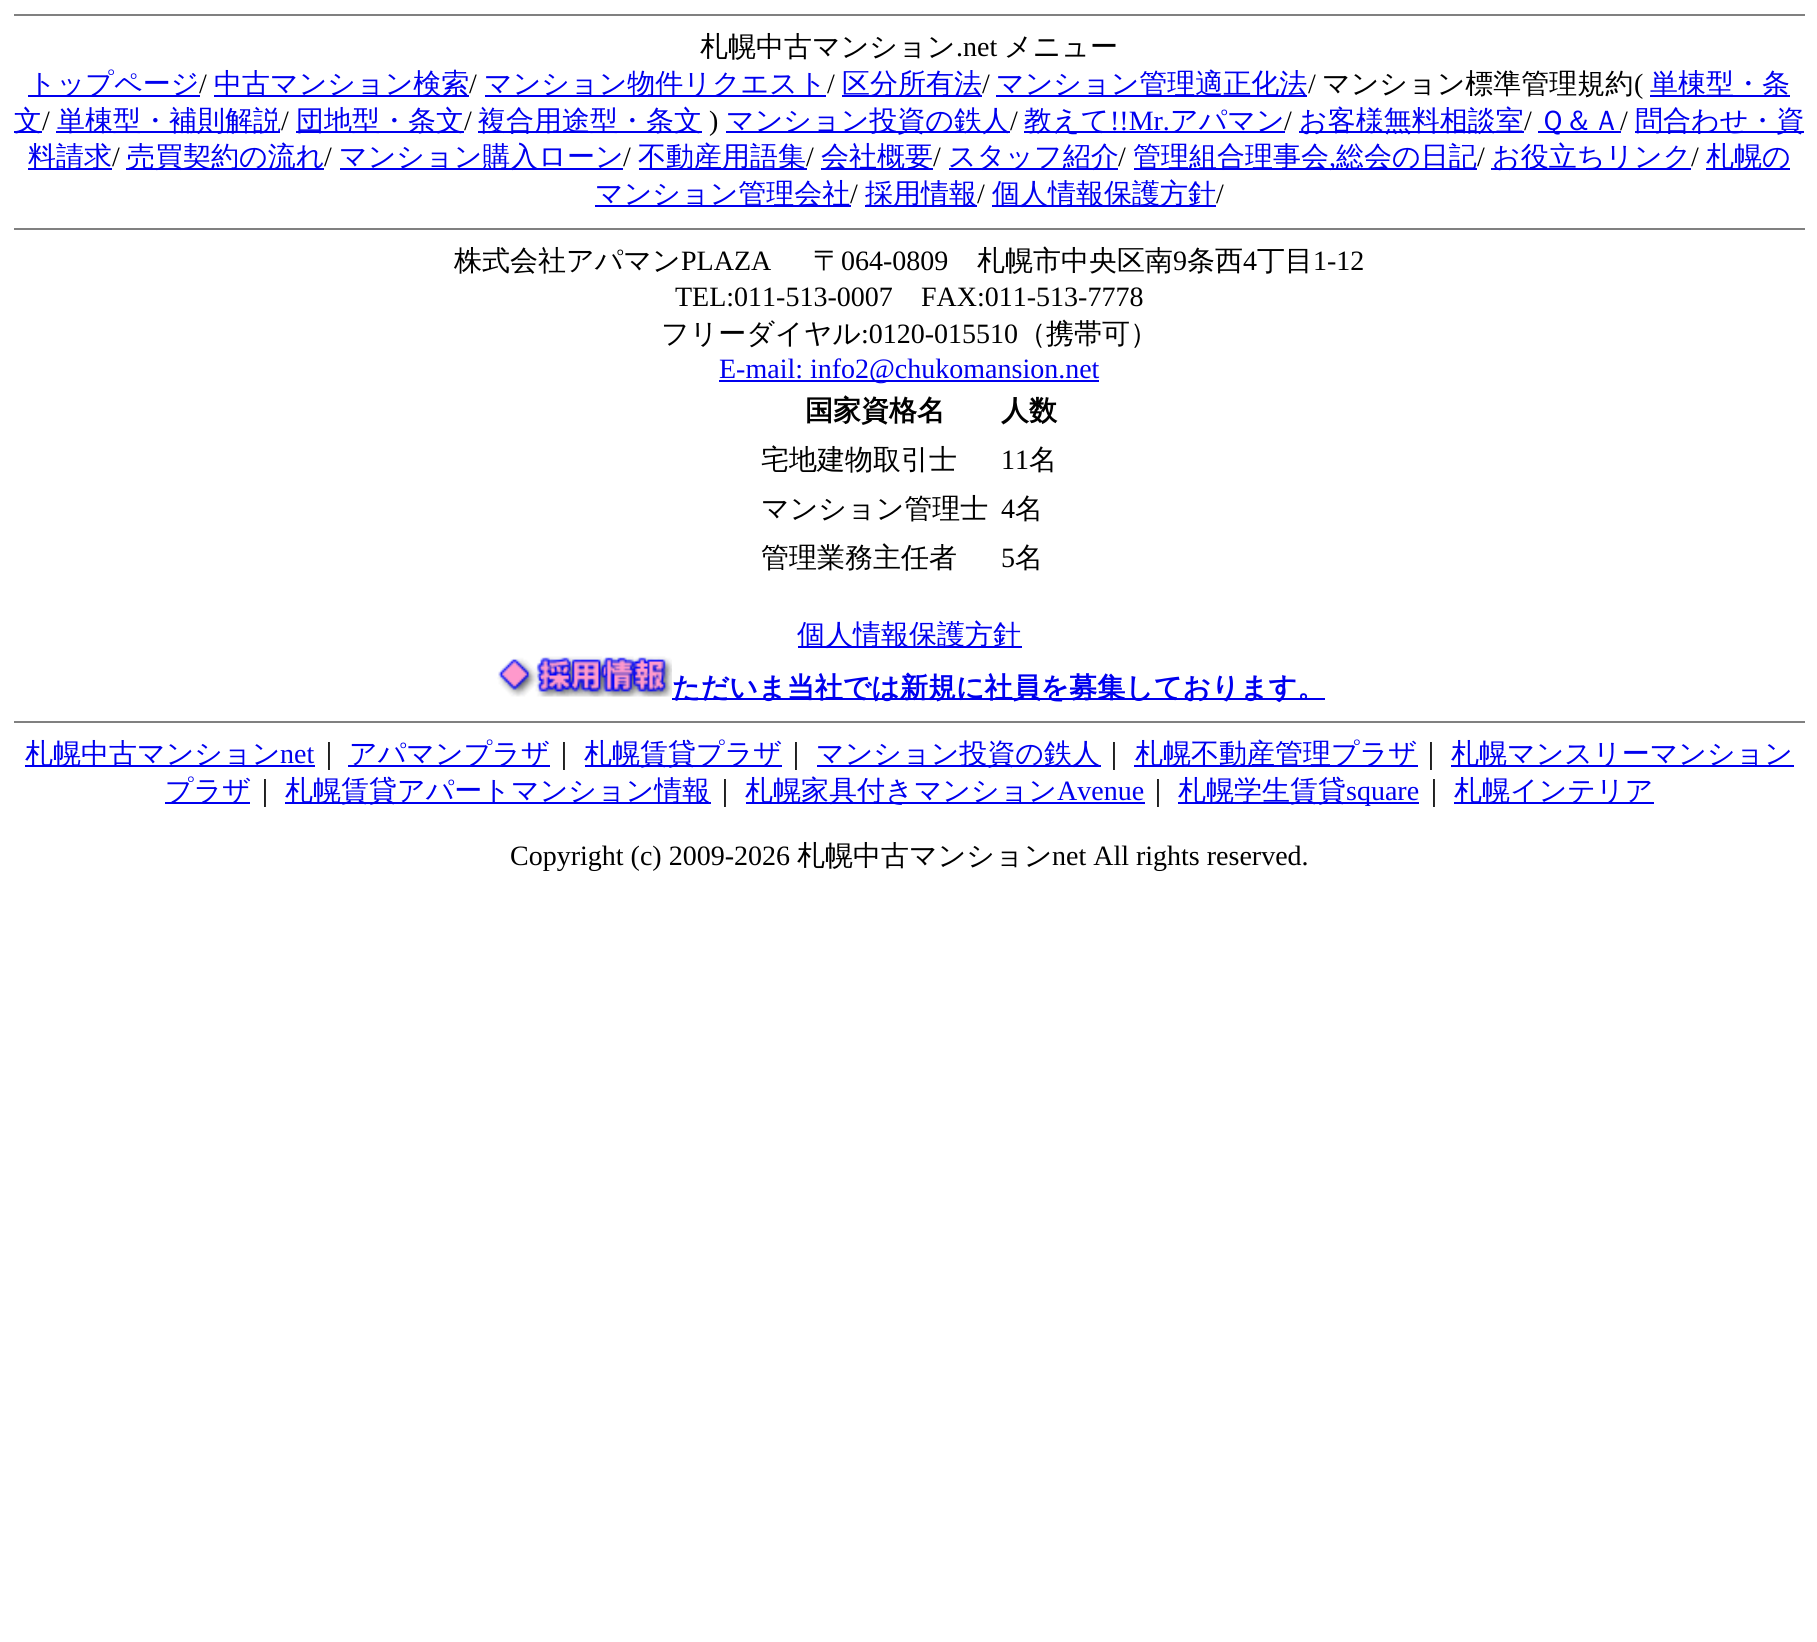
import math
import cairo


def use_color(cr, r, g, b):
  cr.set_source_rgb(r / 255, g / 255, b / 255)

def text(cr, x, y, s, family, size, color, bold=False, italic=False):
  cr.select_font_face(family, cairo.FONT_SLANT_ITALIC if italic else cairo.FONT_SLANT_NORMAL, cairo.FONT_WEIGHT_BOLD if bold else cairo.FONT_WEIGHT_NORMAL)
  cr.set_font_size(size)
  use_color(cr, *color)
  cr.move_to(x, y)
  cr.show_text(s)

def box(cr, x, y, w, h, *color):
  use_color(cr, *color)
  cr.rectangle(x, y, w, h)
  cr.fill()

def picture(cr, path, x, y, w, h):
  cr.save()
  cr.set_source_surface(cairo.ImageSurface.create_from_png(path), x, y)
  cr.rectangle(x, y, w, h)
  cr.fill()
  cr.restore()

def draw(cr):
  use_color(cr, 255, 255, 255)
  cr.paint()
  box(cr, 14, 14, 1791, 2, 128, 128, 128)
  box(cr, 28, 95, 172, 2, 0, 0, 238)
  box(cr, 214, 95, 255, 2, 0, 0, 238)
  box(cr, 485, 95, 341, 2, 0, 0, 238)
  box(cr, 842, 95, 140, 2, 0, 0, 238)
  box(cr, 996, 95, 311, 2, 0, 0, 238)
  box(cr, 1650, 95, 140, 2, 0, 0, 238)
  box(cr, 14, 131, 28, 2, 0, 0, 238)
  box(cr, 56, 131, 224, 2, 0, 0, 238)
  box(cr, 296, 131, 168, 2, 0, 0, 238)
  box(cr, 478, 131, 224, 2, 0, 0, 238)
  box(cr, 726, 131, 284, 2, 0, 0, 238)
  box(cr, 1024, 131, 261, 2, 0, 0, 238)
  box(cr, 1299, 131, 225, 2, 0, 0, 238)
  box(cr, 1538, 131, 83, 2, 0, 0, 238)
  box(cr, 1635, 131, 169, 2, 0, 0, 238)
  box(cr, 28, 168, 84, 2, 0, 0, 238)
  box(cr, 126, 168, 198, 2, 0, 0, 238)
  box(cr, 340, 168, 283, 2, 0, 0, 238)
  box(cr, 639, 168, 168, 2, 0, 0, 238)
  box(cr, 821, 168, 112, 2, 0, 0, 238)
  box(cr, 949, 168, 169, 2, 0, 0, 238)
  box(cr, 1134, 168, 343, 2, 0, 0, 238)
  box(cr, 1491, 168, 200, 2, 0, 0, 238)
  box(cr, 1706, 168, 84, 2, 0, 0, 238)
  box(cr, 595, 205, 256, 2, 0, 0, 238)
  box(cr, 865, 205, 112, 2, 0, 0, 238)
  box(cr, 992, 205, 224, 2, 0, 0, 238)
  box(cr, 14, 228, 1791, 2, 128, 128, 128)
  box(cr, 719, 380, 380, 2, 0, 0, 238)
  box(cr, 798, 646, 224, 2, 0, 0, 238)
  picture(cr, "img_01.png", 497, 656, 175, 41)
  box(cr, 672, 698, 653, 2, 0, 0, 238)
  box(cr, 14, 721, 1791, 2, 128, 128, 128)
  box(cr, 25, 765, 290, 2, 0, 0, 238)
  box(cr, 348, 765, 202, 2, 0, 0, 238)
  box(cr, 585, 765, 197, 2, 0, 0, 238)
  box(cr, 817, 765, 284, 2, 0, 0, 238)
  box(cr, 1134, 765, 284, 2, 0, 0, 238)
  box(cr, 1451, 765, 343, 2, 0, 0, 238)
  box(cr, 165, 802, 85, 2, 0, 0, 238)
  box(cr, 285, 802, 426, 2, 0, 0, 238)
  box(cr, 746, 802, 399, 2, 0, 0, 238)
  box(cr, 1178, 802, 241, 2, 0, 0, 238)
  box(cr, 1454, 802, 200, 2, 0, 0, 238)
  text(cr, 700, 56, "札幌中古マンション", "WenQuanYi Zen Hei Medium", 28, (0, 0, 0))
  text(cr, 956, 56, ".net", "Liberation Serif", 28, (0, 0, 0))
  text(cr, 1004, 56, "メニュー", "WenQuanYi Zen Hei Medium", 28, (0, 0, 0))
  text(cr, 28, 93, "トップページ", "WenQuanYi Zen Hei Medium", 28, (0, 0, 238))
  text(cr, 199, 93, "/", "Liberation Serif", 28, (0, 0, 0))
  text(cr, 214, 93, "中古マンション検索", "WenQuanYi Zen Hei Medium", 28, (0, 0, 238))
  text(cr, 469, 93, "/", "Liberation Serif", 28, (0, 0, 0))
  text(cr, 484, 93, "マンション物件リクエスト", "WenQuanYi Zen Hei Medium", 28, (0, 0, 238))
  text(cr, 827, 93, "/", "Liberation Serif", 28, (0, 0, 0))
  text(cr, 842, 93, "区分所有法", "WenQuanYi Zen Hei Medium", 28, (0, 0, 238))
  text(cr, 982, 93, "/", "Liberation Serif", 28, (0, 0, 0))
  text(cr, 996, 93, "マンション管理適正化法", "WenQuanYi Zen Hei Medium", 28, (0, 0, 238))
  text(cr, 1308, 93, "/", "Liberation Serif", 28, (0, 0, 0))
  text(cr, 1322, 93, "マンション標準管理規約", "WenQuanYi Zen Hei Medium", 28, (0, 0, 0))
  text(cr, 1634, 93, "(", "Liberation Serif", 28, (0, 0, 0))
  text(cr, 1650, 93, "単棟型・条", "WenQuanYi Zen Hei Medium", 28, (0, 0, 238))
  text(cr, 14, 130, "文", "WenQuanYi Zen Hei Medium", 28, (0, 0, 238))
  text(cr, 42, 130, "/", "Liberation Serif", 28, (0, 0, 0))
  text(cr, 57, 130, "単棟型・補則解説", "WenQuanYi Zen Hei Medium", 28, (0, 0, 238))
  text(cr, 281, 130, "/", "Liberation Serif", 28, (0, 0, 0))
  text(cr, 296, 130, "団地型・条文", "WenQuanYi Zen Hei Medium", 28, (0, 0, 238))
  text(cr, 464, 130, "/", "Liberation Serif", 28, (0, 0, 0))
  text(cr, 478, 130, "複合用途型・条文", "WenQuanYi Zen Hei Medium", 28, (0, 0, 238))
  text(cr, 709, 130, ")", "Liberation Serif", 28, (0, 0, 0))
  text(cr, 726, 130, "マンション投資の鉄人", "WenQuanYi Zen Hei Medium", 28, (0, 0, 238))
  text(cr, 1010, 130, "/", "Liberation Serif", 28, (0, 0, 0))
  text(cr, 1024, 130, "教えて", "WenQuanYi Zen Hei Medium", 28, (0, 0, 238))
  text(cr, 1110, 130, "!!Mr.", "Liberation Serif", 28, (0, 0, 238))
  text(cr, 1170, 130, "アパマン", "WenQuanYi Zen Hei Medium", 28, (0, 0, 238))
  text(cr, 1284, 130, "/", "Liberation Serif", 28, (0, 0, 0))
  text(cr, 1299, 130, "お客様無料相談室", "WenQuanYi Zen Hei Medium", 28, (0, 0, 238))
  text(cr, 1524, 130, "/", "Liberation Serif", 28, (0, 0, 0))
  text(cr, 1539, 130, "Ｑ＆Ａ", "WenQuanYi Zen Hei Medium", 28, (0, 0, 238))
  text(cr, 1620, 130, "/", "Liberation Serif", 28, (0, 0, 0))
  text(cr, 1635, 130, "問合わせ・資", "WenQuanYi Zen Hei Medium", 28, (0, 0, 238))
  text(cr, 28, 166, "料請求", "WenQuanYi Zen Hei Medium", 28, (0, 0, 238))
  text(cr, 112, 166, "/", "Liberation Serif", 28, (0, 0, 0))
  text(cr, 127, 166, "売買契約の流れ", "WenQuanYi Zen Hei Medium", 28, (0, 0, 238))
  text(cr, 324, 166, "/", "Liberation Serif", 28, (0, 0, 0))
  text(cr, 339, 166, "マンション購入ローン", "WenQuanYi Zen Hei Medium", 28, (0, 0, 238))
  text(cr, 623, 166, "/", "Liberation Serif", 28, (0, 0, 0))
  text(cr, 638, 166, "不動産用語集", "WenQuanYi Zen Hei Medium", 28, (0, 0, 238))
  text(cr, 806, 166, "/", "Liberation Serif", 28, (0, 0, 0))
  text(cr, 821, 166, "会社概要", "WenQuanYi Zen Hei Medium", 28, (0, 0, 238))
  text(cr, 933, 166, "/", "Liberation Serif", 28, (0, 0, 0))
  text(cr, 948, 166, "スタッフ紹介", "WenQuanYi Zen Hei Medium", 28, (0, 0, 238))
  text(cr, 1118, 166, "/", "Liberation Serif", 28, (0, 0, 0))
  text(cr, 1133, 166, "管理組合理事会", "WenQuanYi Zen Hei Medium", 28, (0, 0, 238))
  text(cr, 1329, 166, ",", "Liberation Serif", 28, (0, 0, 238))
  text(cr, 1336, 166, "総会の日記", "WenQuanYi Zen Hei Medium", 28, (0, 0, 238))
  text(cr, 1477, 166, "/", "Liberation Serif", 28, (0, 0, 0))
  text(cr, 1492, 166, "お役立ちリンク", "WenQuanYi Zen Hei Medium", 28, (0, 0, 238))
  text(cr, 1691, 166, "/", "Liberation Serif", 28, (0, 0, 0))
  text(cr, 1706, 166, "札幌の", "WenQuanYi Zen Hei Medium", 28, (0, 0, 238))
  text(cr, 595, 203, "マンション管理会社", "WenQuanYi Zen Hei Medium", 28, (0, 0, 238))
  text(cr, 850, 203, "/", "Liberation Serif", 28, (0, 0, 0))
  text(cr, 865, 203, "採用情報", "WenQuanYi Zen Hei Medium", 28, (0, 0, 238))
  text(cr, 977, 203, "/", "Liberation Serif", 28, (0, 0, 0))
  text(cr, 992, 203, "個人情報保護方針", "WenQuanYi Zen Hei Medium", 28, (0, 0, 238))
  text(cr, 1216, 203, "/", "Liberation Serif", 28, (0, 0, 0))
  text(cr, 454, 270, "株式会社アパマン", "WenQuanYi Zen Hei Medium", 28, (0, 0, 0))
  text(cr, 681, 270, "PLAZA", "Liberation Serif", 28, (0, 0, 0))
  text(cr, 813, 270, "〒", "WenQuanYi Zen Hei Medium", 28, (0, 0, 0))
  text(cr, 841, 270, "064-0809", "Liberation Serif", 28, (0, 0, 0))
  text(cr, 977, 270, "札幌市中央区南", "WenQuanYi Zen Hei Medium", 28, (0, 0, 0))
  text(cr, 1173, 270, "9", "Liberation Serif", 28, (0, 0, 0))
  text(cr, 1187, 270, "条西", "WenQuanYi Zen Hei Medium", 28, (0, 0, 0))
  text(cr, 1243, 270, "4", "Liberation Serif", 28, (0, 0, 0))
  text(cr, 1257, 270, "丁目", "WenQuanYi Zen Hei Medium", 28, (0, 0, 0))
  text(cr, 1313, 270, "1-12", "Liberation Serif", 28, (0, 0, 0))
  text(cr, 675, 306, "TEL:011-513-0007", "Liberation Serif", 28, (0, 0, 0))
  text(cr, 921, 306, "FAX:011-513-7778", "Liberation Serif", 28, (0, 0, 0))
  text(cr, 661, 343, "フリーダイヤル", "WenQuanYi Zen Hei Medium", 28, (0, 0, 0))
  text(cr, 861, 343, ":0120-015510", "Liberation Serif", 28, (0, 0, 0))
  text(cr, 1018, 343, "（携帯可）", "WenQuanYi Zen Hei Medium", 28, (0, 0, 0))
  text(cr, 719, 378, "E-mail: info2@chukomansion.net", "Liberation Serif", 28, (0, 0, 238))
  text(cr, 805, 420, "国家資格名", "WenQuanYi Zen Hei", 28, (0, 0, 0), bold=True)
  text(cr, 1001, 420, "人数", "WenQuanYi Zen Hei", 28, (0, 0, 0), bold=True)
  text(cr, 761, 469, "宅地建物取引士", "WenQuanYi Zen Hei Medium", 28, (0, 0, 0))
  text(cr, 1001, 469, "11", "Liberation Serif", 28, (0, 0, 0))
  text(cr, 1029, 469, "名", "WenQuanYi Zen Hei Medium", 28, (0, 0, 0))
  text(cr, 761, 518, "マンション管理士", "WenQuanYi Zen Hei Medium", 28, (0, 0, 0))
  text(cr, 1001, 518, "4", "Liberation Serif", 28, (0, 0, 0))
  text(cr, 1015, 518, "名", "WenQuanYi Zen Hei Medium", 28, (0, 0, 0))
  text(cr, 761, 567, "管理業務主任者", "WenQuanYi Zen Hei Medium", 28, (0, 0, 0))
  text(cr, 1001, 567, "5", "Liberation Serif", 28, (0, 0, 0))
  text(cr, 1015, 567, "名", "WenQuanYi Zen Hei Medium", 28, (0, 0, 0))
  text(cr, 797, 644, "個人情報保護方針", "WenQuanYi Zen Hei Medium", 28, (0, 0, 238))
  text(cr, 672, 697, "ただいま当社では新規に社員を募集しております。", "WenQuanYi Zen Hei", 28, (0, 0, 238), bold=True)
  text(cr, 25, 763, "札幌中古マンション", "WenQuanYi Zen Hei Medium", 28, (0, 0, 238))
  text(cr, 280, 763, "net", "Liberation Serif", 28, (0, 0, 238))
  text(cr, 315, 763, "｜", "WenQuanYi Zen Hei Medium", 28, (0, 0, 0))
  text(cr, 349, 763, "アパマンプラザ", "WenQuanYi Zen Hei Medium", 28, (0, 0, 238))
  text(cr, 550, 763, "｜", "WenQuanYi Zen Hei Medium", 28, (0, 0, 0))
  text(cr, 584, 763, "札幌賃貸プラザ", "WenQuanYi Zen Hei Medium", 28, (0, 0, 238))
  text(cr, 782, 763, "｜", "WenQuanYi Zen Hei Medium", 28, (0, 0, 0))
  text(cr, 816, 763, "マンション投資の鉄人", "WenQuanYi Zen Hei Medium", 28, (0, 0, 238))
  text(cr, 1100, 763, "｜", "WenQuanYi Zen Hei Medium", 28, (0, 0, 0))
  text(cr, 1135, 763, "札幌不動産管理プラザ", "WenQuanYi Zen Hei Medium", 28, (0, 0, 238))
  text(cr, 1417, 763, "｜", "WenQuanYi Zen Hei Medium", 28, (0, 0, 0))
  text(cr, 1451, 763, "札幌マンスリーマンション", "WenQuanYi Zen Hei Medium", 28, (0, 0, 238))
  text(cr, 165, 800, "プラザ", "WenQuanYi Zen Hei Medium", 28, (0, 0, 238))
  text(cr, 251, 800, "｜", "WenQuanYi Zen Hei Medium", 28, (0, 0, 0))
  text(cr, 285, 800, "札幌賃貸アパートマンション情報", "WenQuanYi Zen Hei Medium", 28, (0, 0, 238))
  text(cr, 711, 800, "｜", "WenQuanYi Zen Hei Medium", 28, (0, 0, 0))
  text(cr, 745, 800, "札幌家具付きマンション", "WenQuanYi Zen Hei Medium", 28, (0, 0, 238))
  text(cr, 1057, 800, "Avenue", "Liberation Serif", 28, (0, 0, 238))
  text(cr, 1144, 800, "｜", "WenQuanYi Zen Hei Medium", 28, (0, 0, 0))
  text(cr, 1178, 800, "札幌学生賃貸", "WenQuanYi Zen Hei Medium", 28, (0, 0, 238))
  text(cr, 1346, 800, "square", "Liberation Serif", 28, (0, 0, 238))
  text(cr, 1420, 800, "｜", "WenQuanYi Zen Hei Medium", 28, (0, 0, 0))
  text(cr, 1454, 800, "札幌インテリア", "WenQuanYi Zen Hei Medium", 28, (0, 0, 238))
  text(cr, 510, 865, "Copyright (c) 2009-2026", "Liberation Serif", 28, (0, 0, 0))
  text(cr, 797, 865, "札幌中古マンション", "WenQuanYi Zen Hei Medium", 28, (0, 0, 0))
  text(cr, 1052, 865, "net All rights reserved.", "Liberation Serif", 28, (0, 0, 0))


surface = cairo.ImageSurface(cairo.FORMAT_RGB24, 1817, 1642)
cr = cairo.Context(surface)
options = cairo.FontOptions()
options.set_hint_metrics(cairo.HINT_METRICS_OFF)
options.set_hint_style(cairo.HINT_STYLE_NONE)
cr.set_font_options(options)
cr.set_miter_limit(4)
draw(cr)
surface.write_to_png("out.png")
